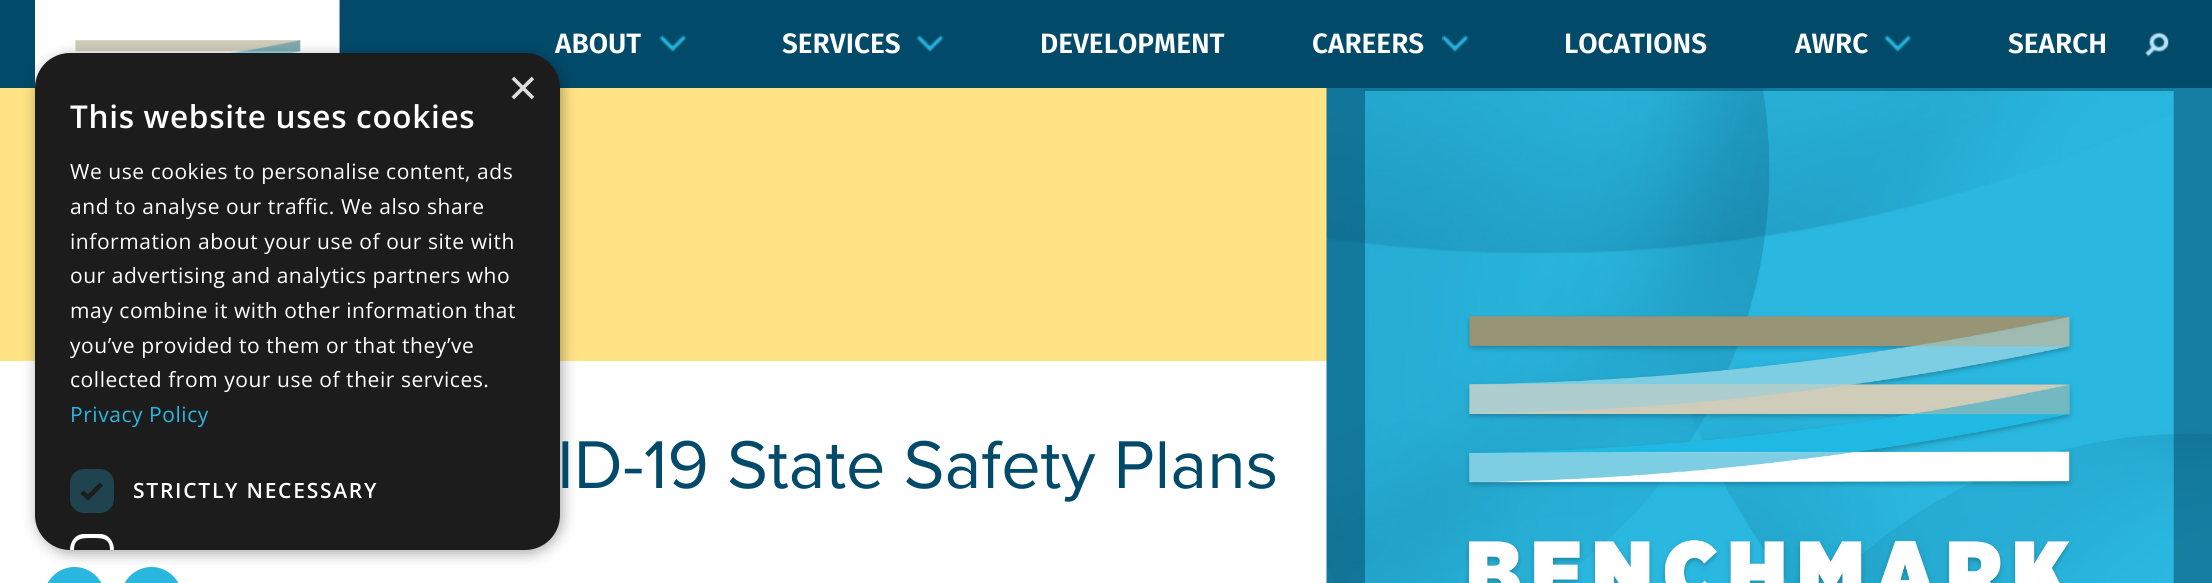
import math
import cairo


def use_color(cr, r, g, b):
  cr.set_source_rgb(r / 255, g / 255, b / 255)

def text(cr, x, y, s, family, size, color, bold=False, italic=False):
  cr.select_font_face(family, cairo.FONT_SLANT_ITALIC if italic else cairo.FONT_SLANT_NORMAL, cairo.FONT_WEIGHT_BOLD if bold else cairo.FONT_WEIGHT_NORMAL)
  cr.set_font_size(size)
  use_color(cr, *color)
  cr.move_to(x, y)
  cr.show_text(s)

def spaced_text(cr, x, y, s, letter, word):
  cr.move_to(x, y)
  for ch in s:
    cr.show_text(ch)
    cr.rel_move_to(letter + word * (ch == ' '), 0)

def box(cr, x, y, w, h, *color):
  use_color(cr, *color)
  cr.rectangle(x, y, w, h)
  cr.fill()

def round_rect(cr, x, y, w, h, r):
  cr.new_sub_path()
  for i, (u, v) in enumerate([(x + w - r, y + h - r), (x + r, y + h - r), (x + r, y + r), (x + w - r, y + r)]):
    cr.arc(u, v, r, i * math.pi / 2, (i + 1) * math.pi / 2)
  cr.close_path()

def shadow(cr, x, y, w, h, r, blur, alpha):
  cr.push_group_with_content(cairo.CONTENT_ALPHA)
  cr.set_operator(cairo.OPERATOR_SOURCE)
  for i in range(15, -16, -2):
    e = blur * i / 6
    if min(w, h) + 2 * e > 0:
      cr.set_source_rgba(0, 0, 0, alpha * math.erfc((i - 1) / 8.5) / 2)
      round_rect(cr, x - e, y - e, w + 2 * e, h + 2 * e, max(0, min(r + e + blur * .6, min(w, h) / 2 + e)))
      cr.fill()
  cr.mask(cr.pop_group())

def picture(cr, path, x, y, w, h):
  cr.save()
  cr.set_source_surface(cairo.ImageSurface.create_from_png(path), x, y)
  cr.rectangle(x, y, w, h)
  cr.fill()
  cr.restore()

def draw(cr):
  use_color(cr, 255, 255, 255)
  cr.paint()
  box(cr, 0, 0, 2212, 88, 2, 74, 106)
  picture(cr, "img_01.png", 35, 0, 306, 88)
  box(cr, 0, 88, 1327, 273, 255, 227, 132)
  use_color(cr, 42, 183, 223)
  round_rect(cr, 44, 567, 61, 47, 30.5)
  cr.fill()
  round_rect(cr, 121, 567, 61, 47, 30.5)
  cr.fill()
  use_color(cr, 0, 0, 0)
  shadow(cr, 37, 56, 525, 497, 35, 7, 0.35)
  picture(cr, "img_02.png", 659, 34, 28, 18)
  picture(cr, "img_03.png", 916, 34, 28, 18)
  picture(cr, "img_04.png", 1442, 34, 27, 18)
  picture(cr, "img_05.png", 1884, 34, 27, 18)
  picture(cr, "img_06.png", 2145, 32, 24, 25)
  picture(cr, "img_07.png", 1326, 88, 886, 495)
  text(cr, 555, 53, "ABOUT", "Fira Sans SemiBold", 28, (255, 255, 255))
  use_color(cr, 28, 28, 28)
  round_rect(cr, 35, 53, 525, 497, 35)
  cr.fill()
  text(cr, 508, 105, "×", "Liberation Sans", 51, (221, 221, 221))
  use_color(cr, 255, 255, 255)
  cr.new_path()
  cr.move_to(84, 534)
  cr.curve_to(75, 534, 70, 542, 70, 550)
  cr.line_to(74, 550)
  cr.curve_to(74, 538, 82, 538, 92, 538)
  cr.curve_to(102, 538, 110, 538, 110, 550)
  cr.line_to(114, 550)
  cr.curve_to(114, 542, 109, 534, 100, 534)
  cr.close_path()
  cr.fill()
  use_color(cr, 32, 68, 79)
  round_rect(cr, 70, 469, 44, 44, 14)
  cr.fill()
  cr.new_path()
  cr.move_to(82, 492)
  cr.line_to(88, 497.5)
  cr.line_to(101.5, 484)
  use_color(cr, 28, 28, 28)
  cr.set_line_width(4.6)
  cr.stroke()
  cr.select_font_face("Open Sans SemiBold")
  cr.set_font_size(21)
  use_color(cr, 255, 255, 255)
  spaced_text(cr, 133, 498, "STRICTLY NECESSARY", 1.75, 0)
  cr.select_font_face("Open Sans")
  use_color(cr, 42, 183, 223)
  spaced_text(cr, 70, 422, "Privacy Policy", 0.55, 0)
  use_color(cr, 255, 255, 255)
  spaced_text(cr, 70, 387, "collected from your use of their services.", 0.55, 0)
  spaced_text(cr, 70, 353, "you’ve provided to them or that they’ve", 0.55, 0)
  spaced_text(cr, 70, 318, "may combine it with other information that", 0.55, 0)
  spaced_text(cr, 70, 283, "our advertising and analytics partners who", 0.55, 0)
  spaced_text(cr, 70, 249, "information about your use of our site with", 0.55, 0)
  spaced_text(cr, 70, 214, "and to analyse our traffic. We also share", 0.55, 0)
  spaced_text(cr, 70, 179, "We use cookies to personalise content, ads", 0.55, 0)
  cr.select_font_face("Open Sans SemiBold")
  cr.set_font_size(31.5)
  spaced_text(cr, 70, 128, "This website uses cookies", 0.7, 0)
  text(cr, 782, 53, "SERVICES", "Fira Sans SemiBold", 28, (255, 255, 255))
  text(cr, 1040, 53, "DEVELOPMENT", "Fira Sans SemiBold", 28, (255, 255, 255))
  text(cr, 1312, 53, "CAREERS", "Fira Sans SemiBold", 28, (255, 255, 255))
  text(cr, 1564, 53, "LOCATIONS", "Fira Sans SemiBold", 28, (255, 255, 255))
  text(cr, 1795, 53, "AWRC", "Fira Sans SemiBold", 28, (255, 255, 255))
  text(cr, 2008, 53, "SEARCH", "Fira Sans SemiBold", 28, (255, 255, 255))
  text(cr, 557, 488, "ID-19 State Safety Plans", "Proxima Nova", 70, (2, 74, 106))


surface = cairo.ImageSurface(cairo.FORMAT_RGB24, 2212, 583)
cr = cairo.Context(surface)
options = cairo.FontOptions()
options.set_hint_metrics(cairo.HINT_METRICS_OFF)
options.set_hint_style(cairo.HINT_STYLE_NONE)
cr.set_font_options(options)
cr.set_miter_limit(4)
draw(cr)
surface.write_to_png("out.png")
